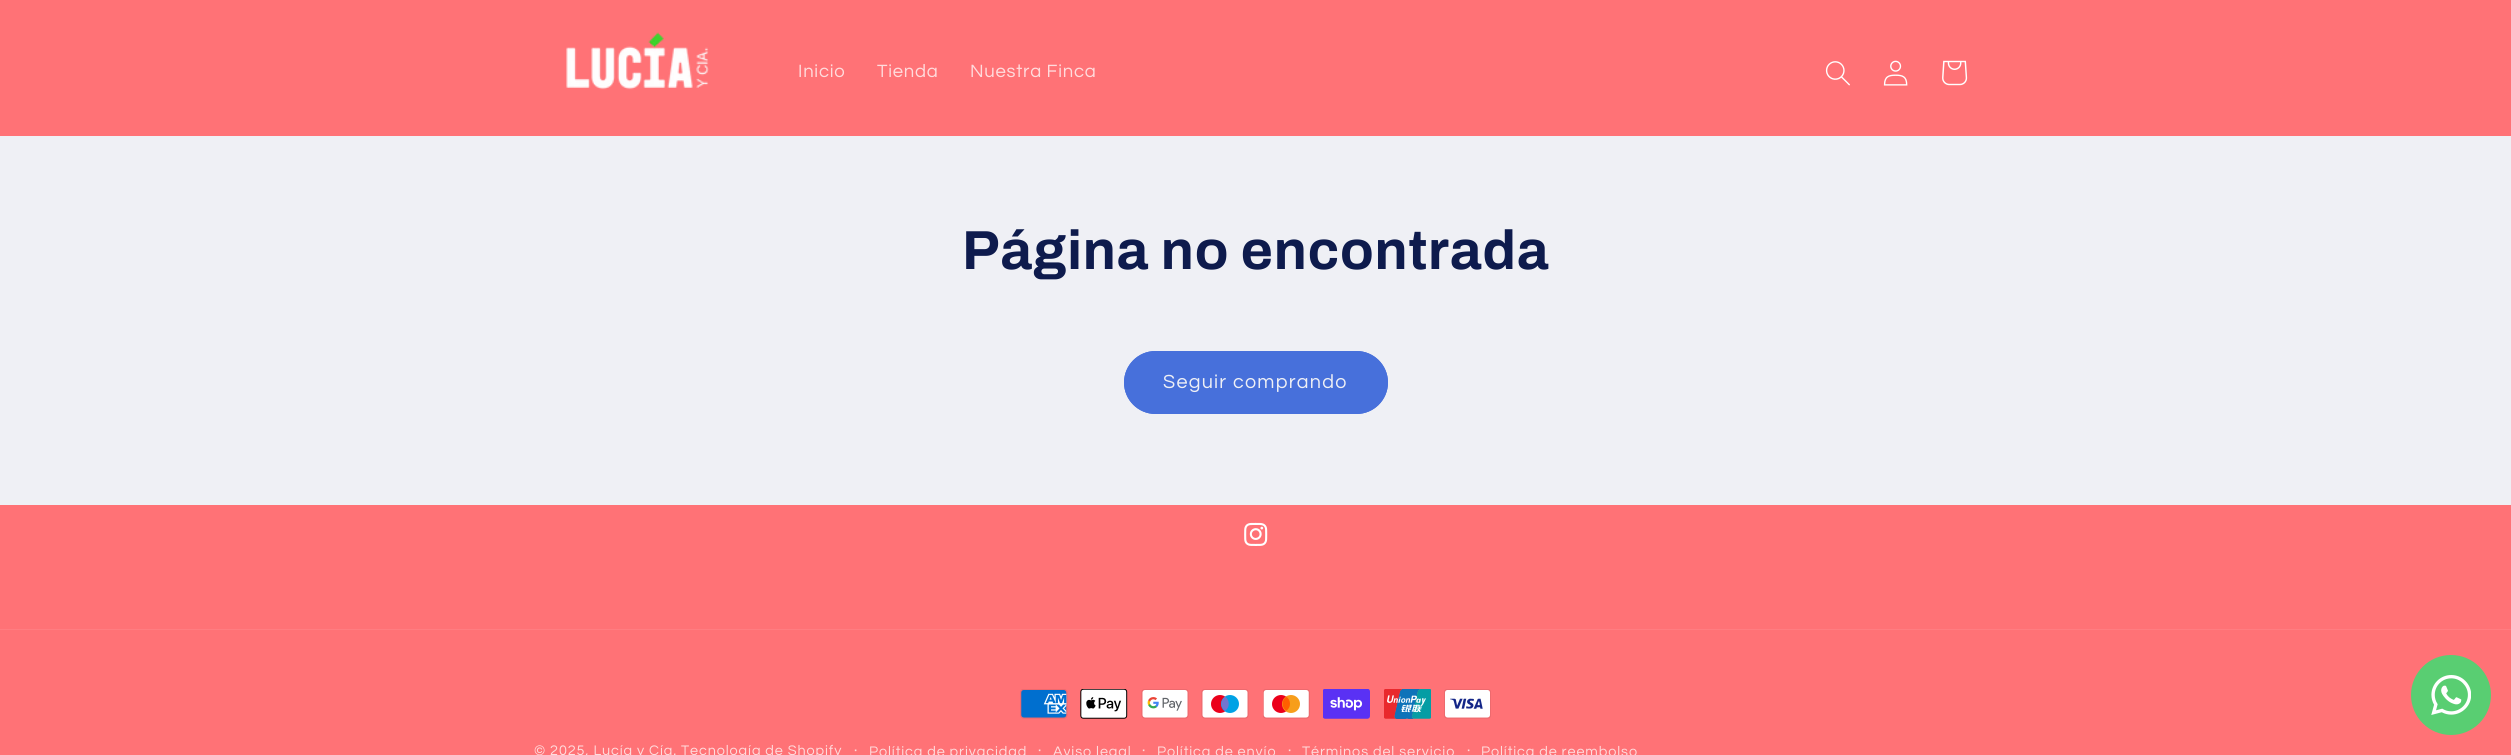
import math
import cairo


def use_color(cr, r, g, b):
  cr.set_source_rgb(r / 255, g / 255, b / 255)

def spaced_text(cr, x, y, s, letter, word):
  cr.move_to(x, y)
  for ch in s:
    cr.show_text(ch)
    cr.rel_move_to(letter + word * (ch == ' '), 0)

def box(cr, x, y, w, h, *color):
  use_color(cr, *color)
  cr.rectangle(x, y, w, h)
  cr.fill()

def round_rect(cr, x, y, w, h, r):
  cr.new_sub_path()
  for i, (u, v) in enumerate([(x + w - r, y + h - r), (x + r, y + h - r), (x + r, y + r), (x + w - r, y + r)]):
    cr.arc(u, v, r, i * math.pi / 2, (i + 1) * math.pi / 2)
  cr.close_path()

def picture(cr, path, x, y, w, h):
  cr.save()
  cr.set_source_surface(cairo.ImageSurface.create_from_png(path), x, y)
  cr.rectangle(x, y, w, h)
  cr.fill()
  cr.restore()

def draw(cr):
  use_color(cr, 239, 240, 245)
  cr.paint()
  box(cr, 0, 0, 2511, 136, 255, 114, 118)
  picture(cr, "img_01.png", 566, 32, 143, 58)
  picture(cr, "img_02.png", 1825, 61, 25, 25)
  picture(cr, "img_03.png", 1883, 60, 25, 26)
  picture(cr, "img_04.png", 1942, 60, 26, 26)
  use_color(cr, 71, 112, 219)
  round_rect(cr, 1124, 351, 264, 63, 31.5)
  cr.fill()
  round_rect(cr, 1124.5, 351.5, 263, 62, 31)
  cr.set_line_width(1)
  cr.stroke()
  box(cr, 0, 505, 2511, 250, 255, 114, 118)
  use_color(cr, 89, 206, 114)
  cr.arc(2451, 695, 40, 0, 2 * math.pi)
  cr.fill()
  picture(cr, "img_05.png", 2431, 675, 40, 40)
  picture(cr, "img_06.png", 1244, 522, 24, 24)
  box(cr, 0, 629, 2511, 1, 255, 125, 129)
  picture(cr, "img_07.png", 1020, 689, 48, 30)
  picture(cr, "img_08.png", 1080, 689, 48, 30)
  picture(cr, "img_09.png", 1141, 689, 48, 30)
  picture(cr, "img_10.png", 1201, 689, 48, 30)
  picture(cr, "img_11.png", 1263, 689, 47, 30)
  picture(cr, "img_12.png", 1323, 689, 47, 30)
  picture(cr, "img_13.png", 1384, 689, 47, 30)
  picture(cr, "img_14.png", 1444, 689, 47, 30)
  cr.select_font_face("Questrial")
  cr.set_font_size(18.5)
  use_color(cr, 255, 220, 221)
  spaced_text(cr, 798, 77, "Inicio", 0.75, 0)
  spaced_text(cr, 877, 77, "Tienda", 0.75, 0)
  spaced_text(cr, 970, 77, "Nuestra Finca", 0.75, 0)
  cr.select_font_face("Archivo", cairo.FONT_SLANT_NORMAL, cairo.FONT_WEIGHT_BOLD)
  cr.set_font_size(55)
  use_color(cr, 14, 27, 77)
  spaced_text(cr, 962, 269, "Página no encontrada", 0.8, 0)
  cr.select_font_face("Questrial")
  cr.set_font_size(19.75)
  use_color(cr, 239, 240, 245)
  spaced_text(cr, 1163, 388, "Seguir comprando", 1.25, 0)
  cr.set_font_size(14.4)
  use_color(cr, 255, 220, 221)
  spaced_text(cr, 534, 755, "© 2025, Lucía y Cía. Tecnología de Shopify", 0.9, 0)
  cr.set_font_size(16)
  spaced_text(cr, 854, 755, "·", 0.9, 0)
  cr.set_font_size(14.4)
  spaced_text(cr, 869, 756, "Política de privacidad", 0.9, 0)
  cr.set_font_size(16)
  spaced_text(cr, 1038, 755, "·", 0.9, 0)
  cr.set_font_size(14.4)
  spaced_text(cr, 1053, 756, "Aviso legal", 0.9, 0)
  cr.set_font_size(16)
  spaced_text(cr, 1142, 755, "·", 0.9, 0)
  cr.set_font_size(14.4)
  spaced_text(cr, 1157, 756, "Política de envío", 0.9, 0)
  cr.set_font_size(16)
  spaced_text(cr, 1288, 755, "·", 0.9, 0)
  cr.set_font_size(14.4)
  spaced_text(cr, 1302, 756, "Términos del servicio", 0.9, 0)
  cr.set_font_size(16)
  spaced_text(cr, 1467, 755, "·", 0.9, 0)
  cr.set_font_size(14.4)
  spaced_text(cr, 1481, 756, "Política de reembolso", 0.9, 0)


surface = cairo.ImageSurface(cairo.FORMAT_RGB24, 2511, 755)
cr = cairo.Context(surface)
options = cairo.FontOptions()
options.set_hint_metrics(cairo.HINT_METRICS_OFF)
options.set_hint_style(cairo.HINT_STYLE_NONE)
cr.set_font_options(options)
cr.set_miter_limit(4)
draw(cr)
surface.write_to_png("out.png")
